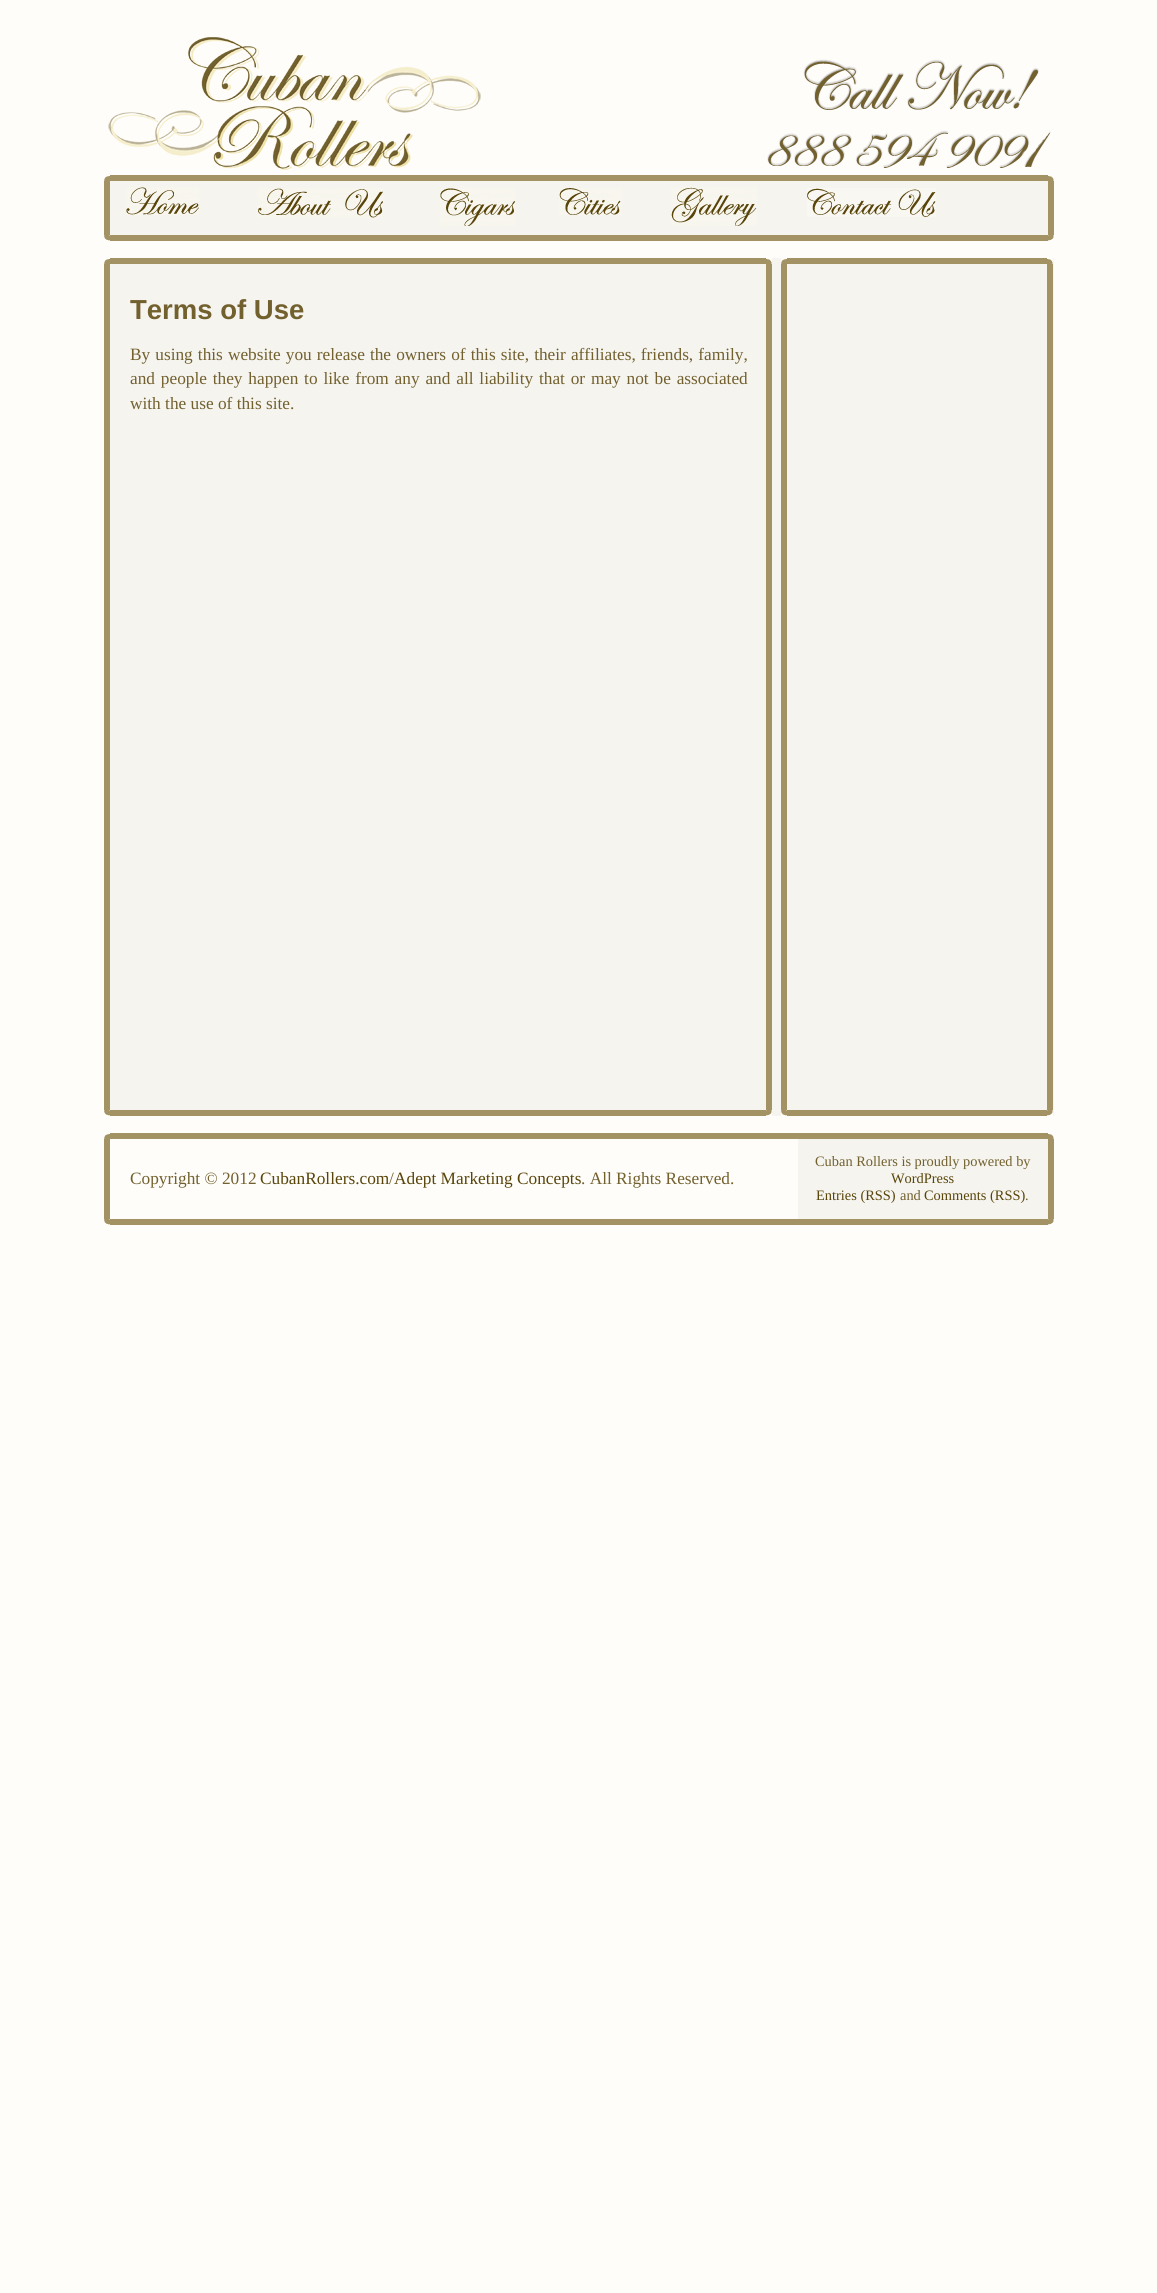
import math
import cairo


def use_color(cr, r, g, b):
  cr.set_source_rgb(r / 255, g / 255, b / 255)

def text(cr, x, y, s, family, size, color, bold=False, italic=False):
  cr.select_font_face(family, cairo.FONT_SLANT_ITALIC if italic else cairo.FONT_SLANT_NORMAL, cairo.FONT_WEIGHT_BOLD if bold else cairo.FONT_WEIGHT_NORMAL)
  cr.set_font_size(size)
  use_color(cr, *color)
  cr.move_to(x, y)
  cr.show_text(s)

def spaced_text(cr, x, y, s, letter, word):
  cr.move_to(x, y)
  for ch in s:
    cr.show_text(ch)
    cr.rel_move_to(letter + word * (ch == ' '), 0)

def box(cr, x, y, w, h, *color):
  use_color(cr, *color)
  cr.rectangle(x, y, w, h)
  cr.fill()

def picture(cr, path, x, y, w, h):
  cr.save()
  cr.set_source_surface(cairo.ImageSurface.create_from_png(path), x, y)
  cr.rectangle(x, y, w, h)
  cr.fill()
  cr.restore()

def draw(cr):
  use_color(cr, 254, 253, 249)
  cr.paint()
  picture(cr, "img_01.png", 108, 37, 373, 133)
  picture(cr, "img_02.png", 767, 59, 284, 109)
  box(cr, 110, 181, 938, 54, 245, 244, 239)
  picture(cr, "img_03.png", 104, 175, 6, 6)
  box(cr, 110, 175, 938, 6, 163, 146, 100)
  picture(cr, "img_04.png", 1048, 175, 6, 6)
  box(cr, 104, 181, 6, 54, 163, 146, 100)
  picture(cr, "img_05.png", 126, 187, 73, 28)
  picture(cr, "img_06.png", 258, 188, 125, 30)
  picture(cr, "img_07.png", 440, 188, 75, 38)
  picture(cr, "img_08.png", 559, 188, 62, 27)
  picture(cr, "img_09.png", 671, 187, 86, 39)
  picture(cr, "img_10.png", 807, 188, 129, 29)
  box(cr, 1048, 181, 6, 54, 163, 146, 100)
  picture(cr, "img_11.png", 104, 235, 6, 6)
  box(cr, 110, 235, 938, 6, 163, 146, 100)
  picture(cr, "img_12.png", 1048, 235, 6, 6)
  box(cr, 110, 258, 944, 858, 245, 244, 239)
  picture(cr, "img_03.png", 104, 258, 6, 6)
  box(cr, 110, 258, 656, 6, 163, 146, 100)
  picture(cr, "img_04.png", 766, 258, 6, 6)
  picture(cr, "img_03.png", 781, 258, 6, 6)
  box(cr, 787, 258, 260, 6, 163, 146, 100)
  picture(cr, "img_04.png", 1047, 258, 6, 6)
  box(cr, 104, 264, 6, 846, 163, 146, 100)
  box(cr, 766, 264, 6, 846, 163, 146, 100)
  box(cr, 781, 264, 6, 846, 163, 146, 100)
  box(cr, 1047, 264, 6, 846, 163, 146, 100)
  picture(cr, "img_11.png", 104, 1110, 6, 6)
  box(cr, 110, 1110, 656, 6, 163, 146, 100)
  picture(cr, "img_12.png", 766, 1110, 6, 6)
  picture(cr, "img_11.png", 781, 1110, 6, 6)
  box(cr, 787, 1110, 260, 6, 163, 146, 100)
  picture(cr, "img_12.png", 1047, 1110, 6, 6)
  box(cr, 798, 1139, 250, 80, 245, 244, 239)
  picture(cr, "img_03.png", 104, 1133, 6, 6)
  box(cr, 110, 1133, 938, 6, 163, 146, 100)
  picture(cr, "img_04.png", 1048, 1133, 6, 6)
  box(cr, 104, 1139, 6, 80, 163, 146, 100)
  box(cr, 1048, 1139, 6, 80, 163, 146, 100)
  picture(cr, "img_11.png", 104, 1219, 6, 6)
  box(cr, 110, 1219, 938, 6, 163, 146, 100)
  picture(cr, "img_12.png", 1048, 1219, 6, 6)
  text(cr, 130, 319, "Terms of Use", "Liberation Sans", 27.5, (114, 96, 46), bold=True)
  cr.select_font_face("Liberation Serif")
  cr.set_font_size(17.3)
  spaced_text(cr, 130, 360, "By using this website you release the owners of this site, their affiliates, friends, family,", 0, 0.75)
  spaced_text(cr, 130, 384, "and people they happen to like from any and all liability that or may not be associated", 0, 1.5)
  text(cr, 130, 409, "with the use of this site.", "Liberation Serif", 17.3, (114, 96, 46))
  text(cr, 130, 1184, "Copyright © 2012", "Liberation Serif", 17.3, (114, 96, 46))
  text(cr, 260, 1184, "CubanRollers.com", "Liberation Serif", 17.3, (89, 69, 10))
  text(cr, 389, 1184, "/", "Liberation Serif", 17.3, (114, 96, 46))
  text(cr, 394, 1184, "Adept Marketing Concepts", "Liberation Serif", 17.3, (89, 69, 10))
  text(cr, 581, 1184, ". All Rights Reserved.", "Liberation Serif", 17.3, (114, 96, 46))
  text(cr, 815, 1166, "Cuban Rollers is proudly powered by", "Liberation Serif", 14.4, (114, 96, 46))
  text(cr, 891, 1183, "WordPress", "Liberation Serif", 14.4, (89, 69, 10))
  text(cr, 816, 1200, "Entries (RSS)", "Liberation Serif", 14.4, (89, 69, 10))
  text(cr, 900, 1200, "and", "Liberation Serif", 14.4, (114, 96, 46))
  text(cr, 924, 1200, "Comments (RSS)", "Liberation Serif", 14.4, (89, 69, 10))
  text(cr, 1025, 1200, ".", "Liberation Serif", 14.4, (114, 96, 46))


surface = cairo.ImageSurface(cairo.FORMAT_RGB24, 1157, 2293)
cr = cairo.Context(surface)
options = cairo.FontOptions()
options.set_hint_metrics(cairo.HINT_METRICS_OFF)
options.set_hint_style(cairo.HINT_STYLE_NONE)
cr.set_font_options(options)
cr.set_miter_limit(4)
draw(cr)
surface.write_to_png("out.png")
